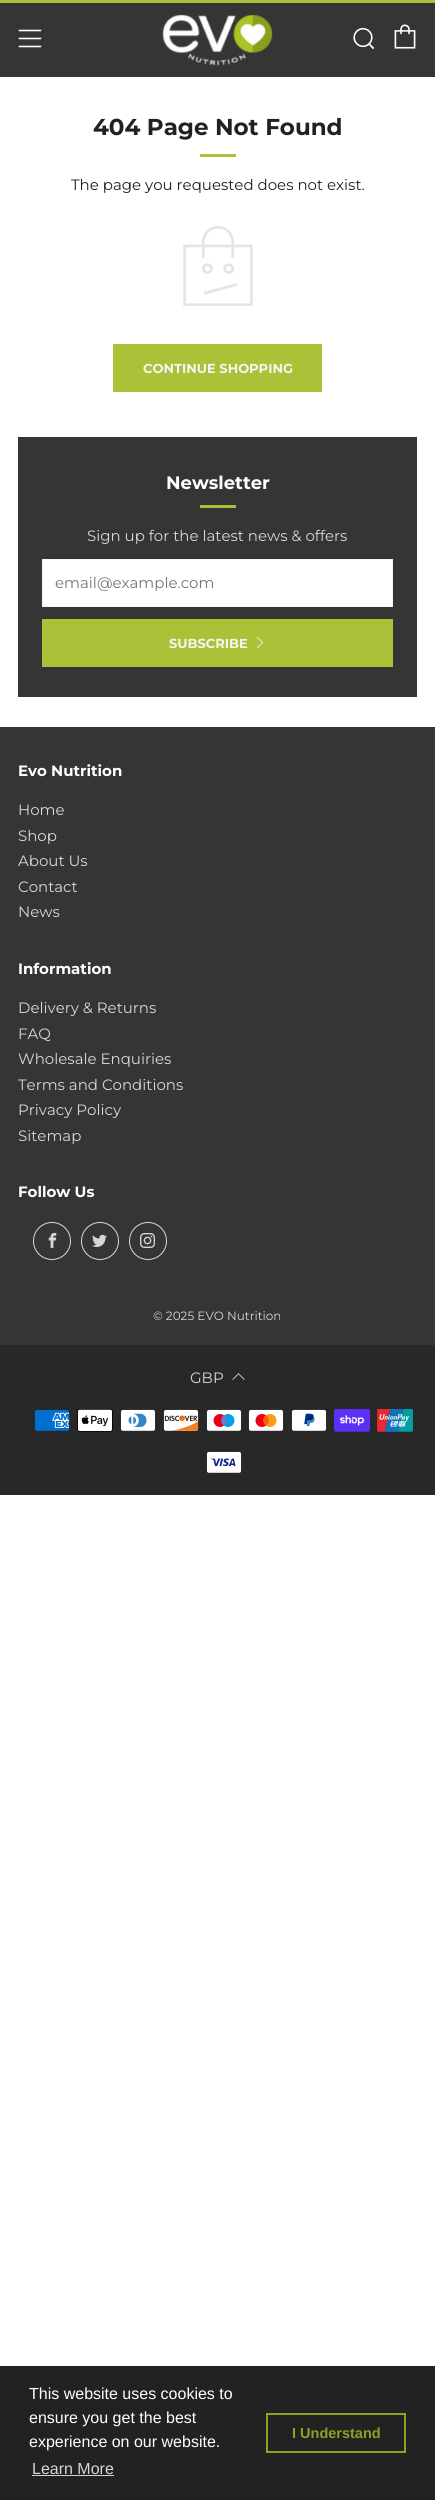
import math
import cairo


def use_color(cr, r, g, b):
  cr.set_source_rgb(r / 255, g / 255, b / 255)

def text(cr, x, y, s, family, size, color, bold=False, italic=False):
  cr.select_font_face(family, cairo.FONT_SLANT_ITALIC if italic else cairo.FONT_SLANT_NORMAL, cairo.FONT_WEIGHT_BOLD if bold else cairo.FONT_WEIGHT_NORMAL)
  cr.set_font_size(size)
  use_color(cr, *color)
  cr.move_to(x, y)
  cr.show_text(s)

def box(cr, x, y, w, h, *color):
  use_color(cr, *color)
  cr.rectangle(x, y, w, h)
  cr.fill()

def picture(cr, path, x, y, w, h):
  cr.save()
  cr.set_source_surface(cairo.ImageSurface.create_from_png(path), x, y)
  cr.rectangle(x, y, w, h)
  cr.fill()
  cr.restore()

def draw(cr):
  use_color(cr, 255, 255, 255)
  cr.paint()
  box(cr, 0, 3, 435, 74, 53, 53, 53)
  box(cr, 0, 0, 435, 3, 170, 194, 56)
  picture(cr, "img_01.png", 18, 29, 24, 19)
  picture(cr, "img_02.png", 162, 14, 111, 52)
  picture(cr, "img_03.png", 353, 27, 22, 23)
  picture(cr, "img_04.png", 394, 24, 22, 25)
  box(cr, 200, 154, 36, 3, 170, 194, 56)
  picture(cr, "img_05.png", 183, 226, 70, 80)
  box(cr, 113, 344, 209, 48, 170, 194, 56)
  box(cr, 18, 437, 399, 260, 53, 53, 53)
  box(cr, 200, 505, 36, 3, 170, 194, 56)
  use_color(cr, 255, 255, 255)
  cr.rectangle(42.5, 559.5, 350, 47)
  cr.fill_preserve()
  use_color(cr, 245, 245, 245)
  cr.set_line_width(1)
  cr.stroke()
  box(cr, 42, 619, 351, 48, 170, 194, 56)
  picture(cr, "img_06.png", 256, 636, 8, 13)
  box(cr, 0, 727, 435, 618, 53, 53, 53)
  cr.arc(52, 1241, 18.5, 0, 2 * math.pi)
  use_color(cr, 215, 215, 215)
  cr.stroke()
  picture(cr, "img_07.png", 48, 1232, 9, 16)
  cr.arc(100, 1241, 18.5, 0, 2 * math.pi)
  cr.stroke()
  picture(cr, "img_08.png", 92, 1234, 15, 13)
  cr.arc(148, 1241, 18.5, 0, 2 * math.pi)
  cr.stroke()
  picture(cr, "img_09.png", 140, 1233, 15, 15)
  box(cr, 0, 1345, 435, 150, 40, 40, 40)
  picture(cr, "img_10.png", 232, 1373, 13, 7)
  picture(cr, "img_11.png", 34, 1409, 36, 22)
  picture(cr, "img_12.png", 77, 1409, 36, 23)
  picture(cr, "img_13.png", 120, 1409, 36, 22)
  picture(cr, "img_14.png", 163, 1409, 36, 22)
  picture(cr, "img_15.png", 206, 1409, 36, 22)
  picture(cr, "img_16.png", 248, 1409, 36, 22)
  picture(cr, "img_17.png", 291, 1409, 36, 22)
  picture(cr, "img_18.png", 334, 1409, 36, 23)
  picture(cr, "img_19.png", 377, 1409, 36, 23)
  picture(cr, "img_20.png", 206, 1451, 36, 22)
  box(cr, 0, 2366, 435, 134, 34, 34, 34)
  box(cr, 32, 2475, 82, 1, 211, 211, 211)
  cr.rectangle(267, 2414, 138, 38)
  use_color(cr, 139, 162, 37)
  cr.set_line_width(2)
  cr.stroke()
  text(cr, 93, 135, "404 Page Not Found", "Montserrat", 23, (33, 33, 33), bold=True)
  text(cr, 71, 190, "The page you requested does not exist.", "Montserrat", 15, (33, 33, 33))
  text(cr, 143, 373, "CONTINUE SHOPPING", "Montserrat", 13, (245, 245, 245), bold=True)
  text(cr, 166, 489, "Newsletter", "Montserrat", 18, (255, 255, 255), bold=True)
  text(cr, 87, 541, "Sign up for the latest news & offers", "Montserrat", 15, (215, 215, 215))
  text(cr, 55, 588, "email@example.com", "Montserrat", 15, (117, 117, 117))
  text(cr, 169, 648, "SUBSCRIBE", "Montserrat", 13, (245, 245, 245), bold=True)
  text(cr, 18, 776, "Evo Nutrition", "Montserrat", 15, (255, 255, 255), bold=True)
  text(cr, 18, 815, "Home", "Montserrat", 15, (215, 215, 215))
  text(cr, 18, 841, "Shop", "Montserrat", 15, (215, 215, 215))
  text(cr, 18, 866, "About Us", "Montserrat", 15, (215, 215, 215))
  text(cr, 18, 892, "Contact", "Montserrat", 15, (215, 215, 215))
  text(cr, 18, 917, "News", "Montserrat", 15, (215, 215, 215))
  text(cr, 18, 974, "Information", "Montserrat", 15, (255, 255, 255), bold=True)
  text(cr, 18, 1013, "Delivery & Returns", "Montserrat", 15, (215, 215, 215))
  text(cr, 18, 1039, "FAQ", "Montserrat", 15, (215, 215, 215))
  text(cr, 18, 1064, "Wholesale Enquiries", "Montserrat", 15, (215, 215, 215))
  text(cr, 18, 1090, "Terms and Conditions", "Montserrat", 15, (215, 215, 215))
  text(cr, 18, 1115, "Privacy Policy", "Montserrat", 15, (215, 215, 215))
  text(cr, 18, 1141, "Sitemap", "Montserrat", 15, (215, 215, 215))
  text(cr, 18, 1197, "Follow Us", "Montserrat", 15, (255, 255, 255), bold=True)
  text(cr, 153, 1320, "© 2025 EVO Nutrition", "Montserrat", 12, (215, 215, 215))
  text(cr, 190, 1383, "GBP", "Montserrat", 15, (215, 215, 215))
  text(cr, 29, 2399, "This website uses cookies to", "Liberation Sans", 16, (255, 255, 255))
  text(cr, 29, 2423, "ensure you get the best", "Liberation Sans", 16, (255, 255, 255))
  text(cr, 29, 2447, "experience on our website.", "Liberation Sans", 16, (255, 255, 255))
  text(cr, 32, 2474, "Learn More", "Liberation Sans", 16, (215, 215, 215))
  text(cr, 292, 2438, "I Understand", "Liberation Sans", 14.5, (139, 162, 37), bold=True)


surface = cairo.ImageSurface(cairo.FORMAT_RGB24, 435, 2500)
cr = cairo.Context(surface)
options = cairo.FontOptions()
options.set_hint_metrics(cairo.HINT_METRICS_OFF)
options.set_hint_style(cairo.HINT_STYLE_NONE)
cr.set_font_options(options)
cr.set_miter_limit(4)
draw(cr)
surface.write_to_png("out.png")
